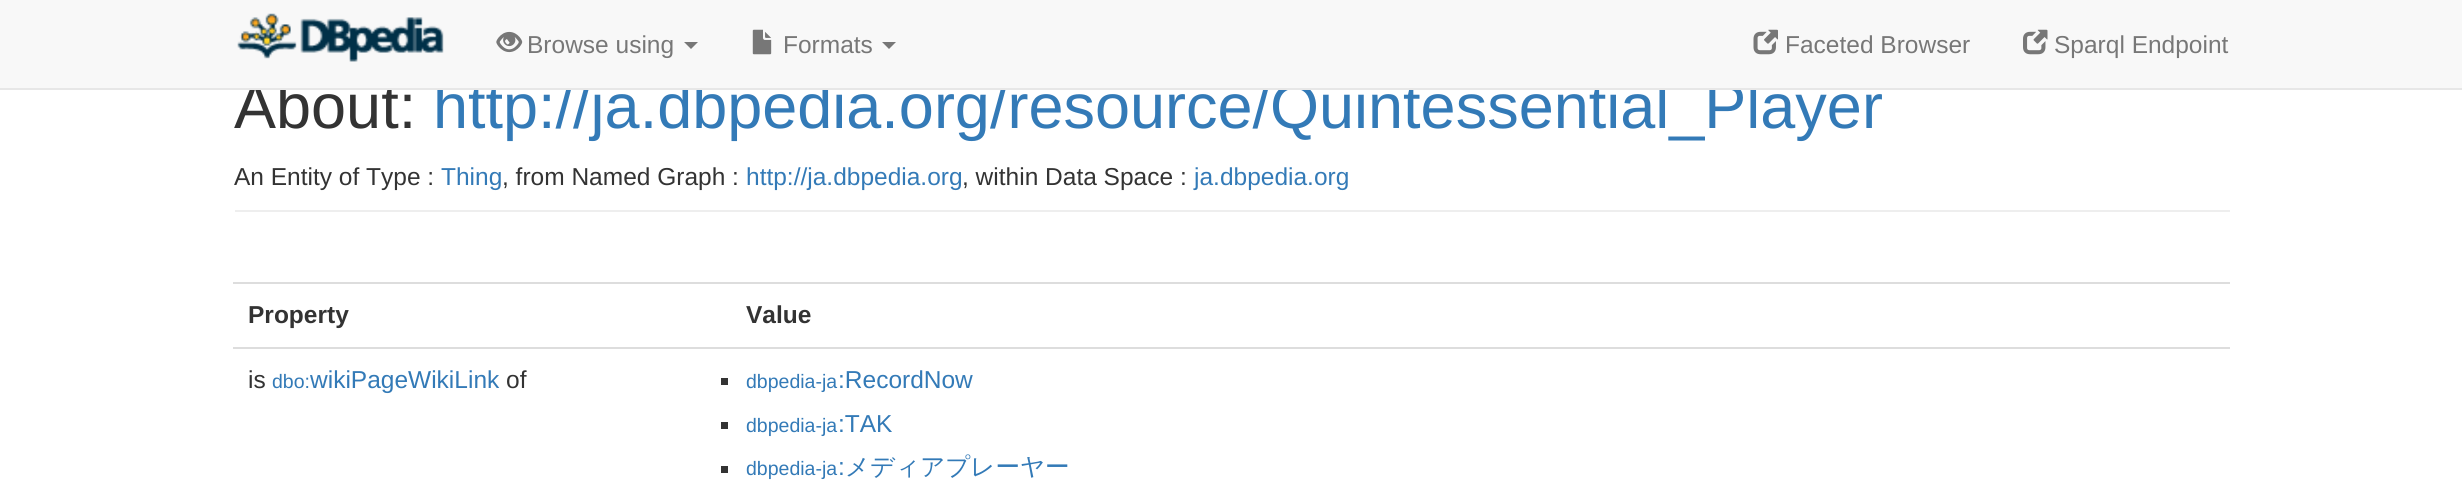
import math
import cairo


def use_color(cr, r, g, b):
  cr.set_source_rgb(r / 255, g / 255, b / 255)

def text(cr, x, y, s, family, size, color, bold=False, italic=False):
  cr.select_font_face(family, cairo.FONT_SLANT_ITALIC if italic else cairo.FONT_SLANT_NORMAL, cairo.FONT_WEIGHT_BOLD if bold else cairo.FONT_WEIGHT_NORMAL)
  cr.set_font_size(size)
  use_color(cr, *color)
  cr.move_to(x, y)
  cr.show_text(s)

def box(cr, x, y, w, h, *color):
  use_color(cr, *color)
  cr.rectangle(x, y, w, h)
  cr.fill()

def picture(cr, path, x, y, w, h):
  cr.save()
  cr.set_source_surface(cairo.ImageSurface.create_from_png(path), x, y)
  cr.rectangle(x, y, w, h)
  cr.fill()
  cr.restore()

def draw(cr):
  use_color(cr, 255, 255, 255)
  cr.paint()
  box(cr, 235, 210, 1995, 2, 238, 238, 238)
  box(cr, 233, 282, 1997, 2, 221, 221, 221)
  box(cr, 233, 347, 1997, 2, 221, 221, 221)
  box(cr, 721, 378, 7, 7, 51, 51, 51)
  box(cr, 721, 422, 7, 7, 51, 51, 51)
  box(cr, 721, 466, 7, 7, 51, 51, 51)
  text(cr, 234, 128, "About:", "Liberation Sans", 63, (51, 51, 51))
  text(cr, 433, 128, "http://ja.dbpedia.org/resource/Quintessential_Player", "Liberation Sans", 63, (51, 122, 183))
  box(cr, 0, 0, 2462, 88, 248, 248, 248)
  picture(cr, "img_03.png", 752, 29, 20, 26)
  use_color(cr, 119, 119, 119)
  cr.new_path()
  cr.move_to(882, 42)
  cr.line_to(896, 42)
  cr.line_to(889, 49)
  cr.close_path()
  cr.fill()
  text(cr, 783, 53, "Formats", "Liberation Sans", 24.5, (119, 119, 119))
  picture(cr, "img_02.png", 496, 31, 27, 22)
  cr.new_path()
  cr.move_to(684, 42)
  cr.line_to(698, 42)
  cr.line_to(691, 49)
  cr.close_path()
  cr.fill()
  text(cr, 527, 53, "Browse using", "Liberation Sans", 24.5, (119, 119, 119))
  picture(cr, "img_05.png", 2023, 29, 25, 26)
  text(cr, 2054, 53, "Sparql Endpoint", "Liberation Sans", 24.5, (119, 119, 119))
  picture(cr, "img_04.png", 1753, 29, 25, 26)
  text(cr, 1785, 53, "Faceted Browser", "Liberation Sans", 24.5, (119, 119, 119))
  picture(cr, "img_01.png", 237, 13, 207, 49)
  box(cr, 0, 88, 2462, 2, 231, 231, 231)
  text(cr, 234, 185, "An Entity of Type :", "Liberation Sans", 24.5, (51, 51, 51))
  text(cr, 441, 185, "Thing", "Liberation Sans", 24.5, (51, 122, 183))
  text(cr, 502, 185, ", from Named Graph :", "Liberation Sans", 24.5, (51, 51, 51))
  text(cr, 746, 185, "http://ja.dbpedia.org", "Liberation Sans", 24.5, (51, 122, 183))
  text(cr, 962, 185, ", within Data Space :", "Liberation Sans", 24.5, (51, 51, 51))
  text(cr, 1194, 185, "ja.dbpedia.org", "Liberation Sans", 24.5, (51, 122, 183))
  text(cr, 248, 323, "Property", "Liberation Sans", 24.5, (51, 51, 51), bold=True)
  text(cr, 746, 323, "Value", "Liberation Sans", 24.5, (51, 51, 51), bold=True)
  text(cr, 248, 388, "is", "Liberation Sans", 24.5, (51, 51, 51))
  text(cr, 272, 388, "dbo:", "Liberation Sans", 19.5, (51, 122, 183))
  text(cr, 310, 388, "wikiPageWikiLink", "Liberation Sans", 24.5, (51, 122, 183))
  text(cr, 506, 388, "of", "Liberation Sans", 24.5, (51, 51, 51))
  text(cr, 746, 388, "dbpedia-ja", "Liberation Sans", 19.5, (51, 122, 183))
  text(cr, 838, 388, ":RecordNow", "Liberation Sans", 24.5, (51, 122, 183))
  text(cr, 746, 432, "dbpedia-ja", "Liberation Sans", 19.5, (51, 122, 183))
  text(cr, 838, 432, ":TAK", "Liberation Sans", 24.5, (51, 122, 183))
  text(cr, 746, 475, "dbpedia-ja", "Liberation Sans", 19.5, (51, 122, 183))
  text(cr, 838, 475, ":", "Liberation Sans", 24.5, (51, 122, 183))
  text(cr, 845, 475, "メディアプレーヤー", "WenQuanYi Zen Hei Medium", 24.5, (51, 122, 183))


surface = cairo.ImageSurface(cairo.FORMAT_RGB24, 2462, 504)
cr = cairo.Context(surface)
options = cairo.FontOptions()
options.set_hint_metrics(cairo.HINT_METRICS_OFF)
options.set_hint_style(cairo.HINT_STYLE_NONE)
cr.set_font_options(options)
cr.set_miter_limit(4)
draw(cr)
surface.write_to_png("out.png")
